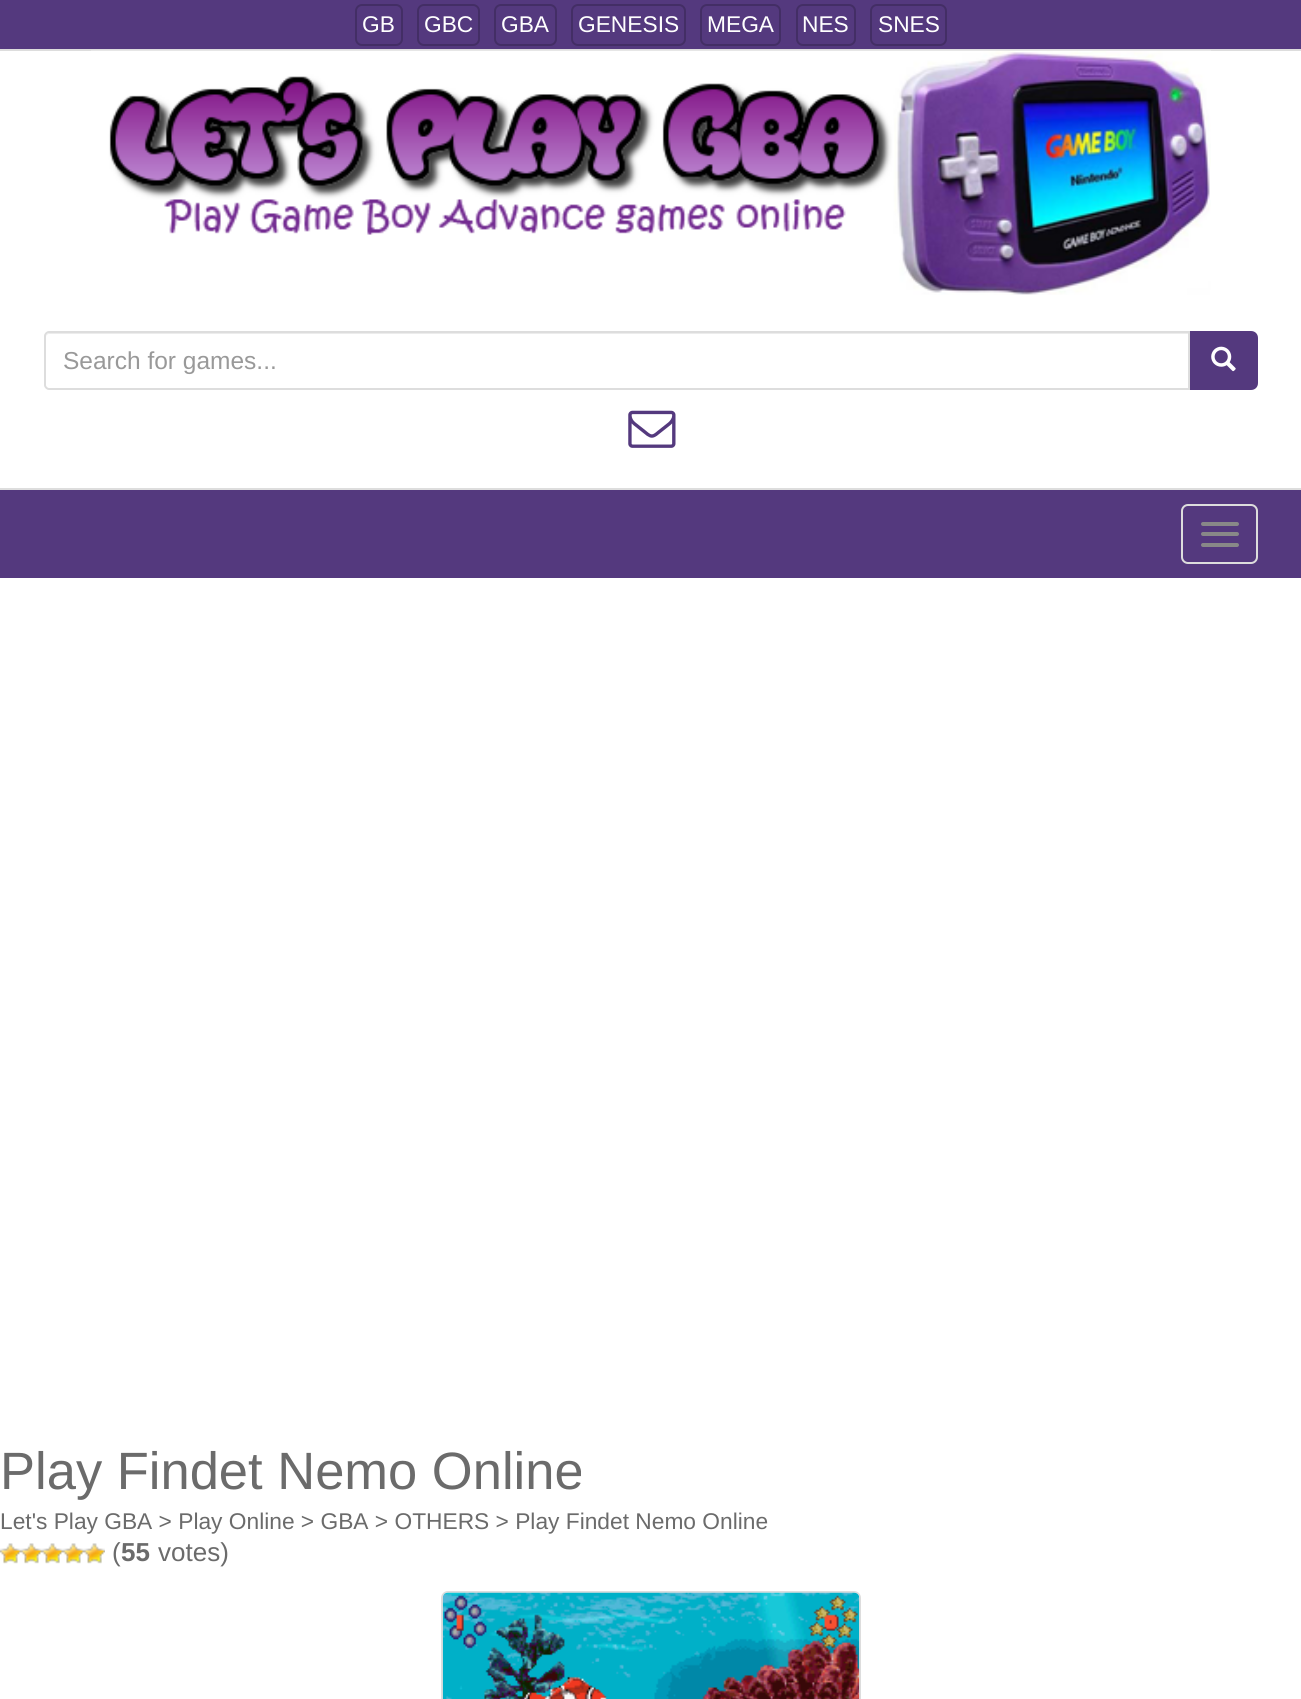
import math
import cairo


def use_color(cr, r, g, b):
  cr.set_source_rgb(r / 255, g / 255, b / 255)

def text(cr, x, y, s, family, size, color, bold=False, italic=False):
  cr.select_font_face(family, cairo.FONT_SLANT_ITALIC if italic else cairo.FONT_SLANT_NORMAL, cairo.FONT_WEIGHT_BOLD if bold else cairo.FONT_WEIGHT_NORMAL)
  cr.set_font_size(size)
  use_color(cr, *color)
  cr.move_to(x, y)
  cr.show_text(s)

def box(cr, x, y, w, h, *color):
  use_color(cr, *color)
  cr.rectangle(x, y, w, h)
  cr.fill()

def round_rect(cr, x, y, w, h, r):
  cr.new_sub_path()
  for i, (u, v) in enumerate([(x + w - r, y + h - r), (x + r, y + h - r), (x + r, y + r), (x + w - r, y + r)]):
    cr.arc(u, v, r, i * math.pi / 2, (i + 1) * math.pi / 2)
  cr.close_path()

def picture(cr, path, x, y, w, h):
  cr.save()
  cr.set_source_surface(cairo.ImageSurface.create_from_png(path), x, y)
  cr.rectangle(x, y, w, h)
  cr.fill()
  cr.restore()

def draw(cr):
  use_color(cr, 255, 255, 255)
  cr.paint()
  box(cr, 0, 0, 1301, 49, 84, 57, 126)
  box(cr, 0, 49, 1301, 2, 221, 221, 221)
  round_rect(cr, 356, 5, 46, 40, 6)
  use_color(cr, 67, 46, 101)
  cr.stroke()
  round_rect(cr, 418, 5, 61, 40, 6)
  cr.stroke()
  round_rect(cr, 495, 5, 61, 40, 6)
  cr.stroke()
  round_rect(cr, 572, 5, 113, 40, 6)
  cr.stroke()
  round_rect(cr, 701, 5, 79, 40, 6)
  cr.stroke()
  round_rect(cr, 797, 5, 58, 40, 6)
  cr.stroke()
  round_rect(cr, 871, 5, 75, 40, 6)
  cr.stroke()
  picture(cr, "img_01.png", 91, 50, 1120, 245)
  use_color(cr, 84, 57, 126)
  cr.new_path()
  cr.move_to(1189, 332)
  cr.line_to(1251, 332)
  cr.curve_to(1254.5, 332, 1257, 334.5, 1257, 338)
  cr.line_to(1257, 383)
  cr.curve_to(1257, 386.5, 1254.5, 389, 1251, 389)
  cr.line_to(1189, 389)
  cr.close_path()
  cr.fill_preserve()
  cr.stroke()
  use_color(cr, 255, 255, 255)
  cr.new_path()
  cr.move_to(49, 331)
  cr.line_to(1190, 331)
  cr.line_to(1190, 390)
  cr.line_to(49, 390)
  cr.curve_to(46, 390, 44, 388, 44, 385)
  cr.line_to(44, 336)
  cr.curve_to(44, 333, 46, 331, 49, 331)
  cr.close_path()
  cr.fill()
  use_color(cr, 236, 236, 236)
  cr.new_path()
  cr.move_to(49, 334)
  cr.line_to(1188, 334)
  cr.line_to(1188, 333)
  cr.line_to(50, 333)
  cr.curve_to(47, 333, 46, 335, 46, 338)
  cr.curve_to(46, 336, 47, 334, 49, 334)
  cr.close_path()
  cr.fill()
  cr.new_path()
  cr.move_to(49, 332)
  cr.line_to(1189, 332)
  cr.line_to(1189, 389)
  cr.line_to(49, 389)
  cr.curve_to(47, 389, 45, 387, 45, 385)
  cr.line_to(45, 336)
  cr.curve_to(45, 334, 47, 332, 49, 332)
  cr.close_path()
  use_color(cr, 221, 221, 221)
  cr.stroke()
  picture(cr, "img_02.png", 1211, 346, 25, 26)
  picture(cr, "img_03.png", 628, 410, 48, 38)
  box(cr, 0, 490, 1301, 88, 84, 57, 126)
  box(cr, 0, 488, 1301, 2, 221, 221, 221)
  round_rect(cr, 1182, 505, 75, 58, 6)
  cr.stroke()
  use_color(cr, 136, 136, 136)
  round_rect(cr, 1201, 522, 38, 4, 2)
  cr.fill()
  round_rect(cr, 1201, 532, 38, 4, 2)
  cr.fill()
  round_rect(cr, 1201, 543, 38, 4, 2)
  cr.fill()
  picture(cr, "img_04.png", 0, 1543, 21, 21)
  picture(cr, "img_05.png", 21, 1543, 21, 21)
  picture(cr, "img_06.png", 42, 1543, 21, 21)
  picture(cr, "img_04.png", 63, 1543, 21, 21)
  picture(cr, "img_06.png", 84, 1543, 21, 21)
  round_rect(cr, 442, 1592, 418, 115, 6)
  use_color(cr, 221, 221, 221)
  cr.stroke()
  picture(cr, "img_07.png", 442, 1592, 418, 107)
  text(cr, 362, 32, "GB", "Liberation Sans", 22.75, (255, 255, 255))
  text(cr, 424, 32, "GBC", "Liberation Sans", 22.75, (255, 255, 255))
  text(cr, 501, 32, "GBA", "Liberation Sans", 22.75, (255, 255, 255))
  text(cr, 578, 32, "GENESIS", "Liberation Sans", 22.75, (255, 255, 255))
  text(cr, 707, 32, "MEGA", "Liberation Sans", 22.75, (255, 255, 255))
  text(cr, 802, 32, "NES", "Liberation Sans", 22.75, (255, 255, 255))
  text(cr, 878, 32, "SNES", "Liberation Sans", 22.75, (255, 255, 255))
  text(cr, 63, 369, "Search for games...", "Liberation Sans", 24.5, (153, 153, 153))
  text(cr, 0, 1489, "Play Findet Nemo Online", "Liberation Sans", 52.5, (107, 107, 107))
  text(cr, 0, 1529, "Let's Play GBA > Play Online > GBA > OTHERS > Play Findet Nemo Online", "Liberation Sans", 22.75, (107, 107, 107))
  text(cr, 112, 1561, "(", "Liberation Sans", 26, (107, 107, 107))
  text(cr, 121, 1561, "55", "Liberation Sans", 26, (107, 107, 107), bold=True)
  text(cr, 158, 1561, "votes)", "Liberation Sans", 26, (107, 107, 107))


surface = cairo.ImageSurface(cairo.FORMAT_RGB24, 1301, 1699)
cr = cairo.Context(surface)
options = cairo.FontOptions()
options.set_hint_metrics(cairo.HINT_METRICS_OFF)
options.set_hint_style(cairo.HINT_STYLE_NONE)
cr.set_font_options(options)
cr.set_miter_limit(4)
draw(cr)
surface.write_to_png("out.png")
